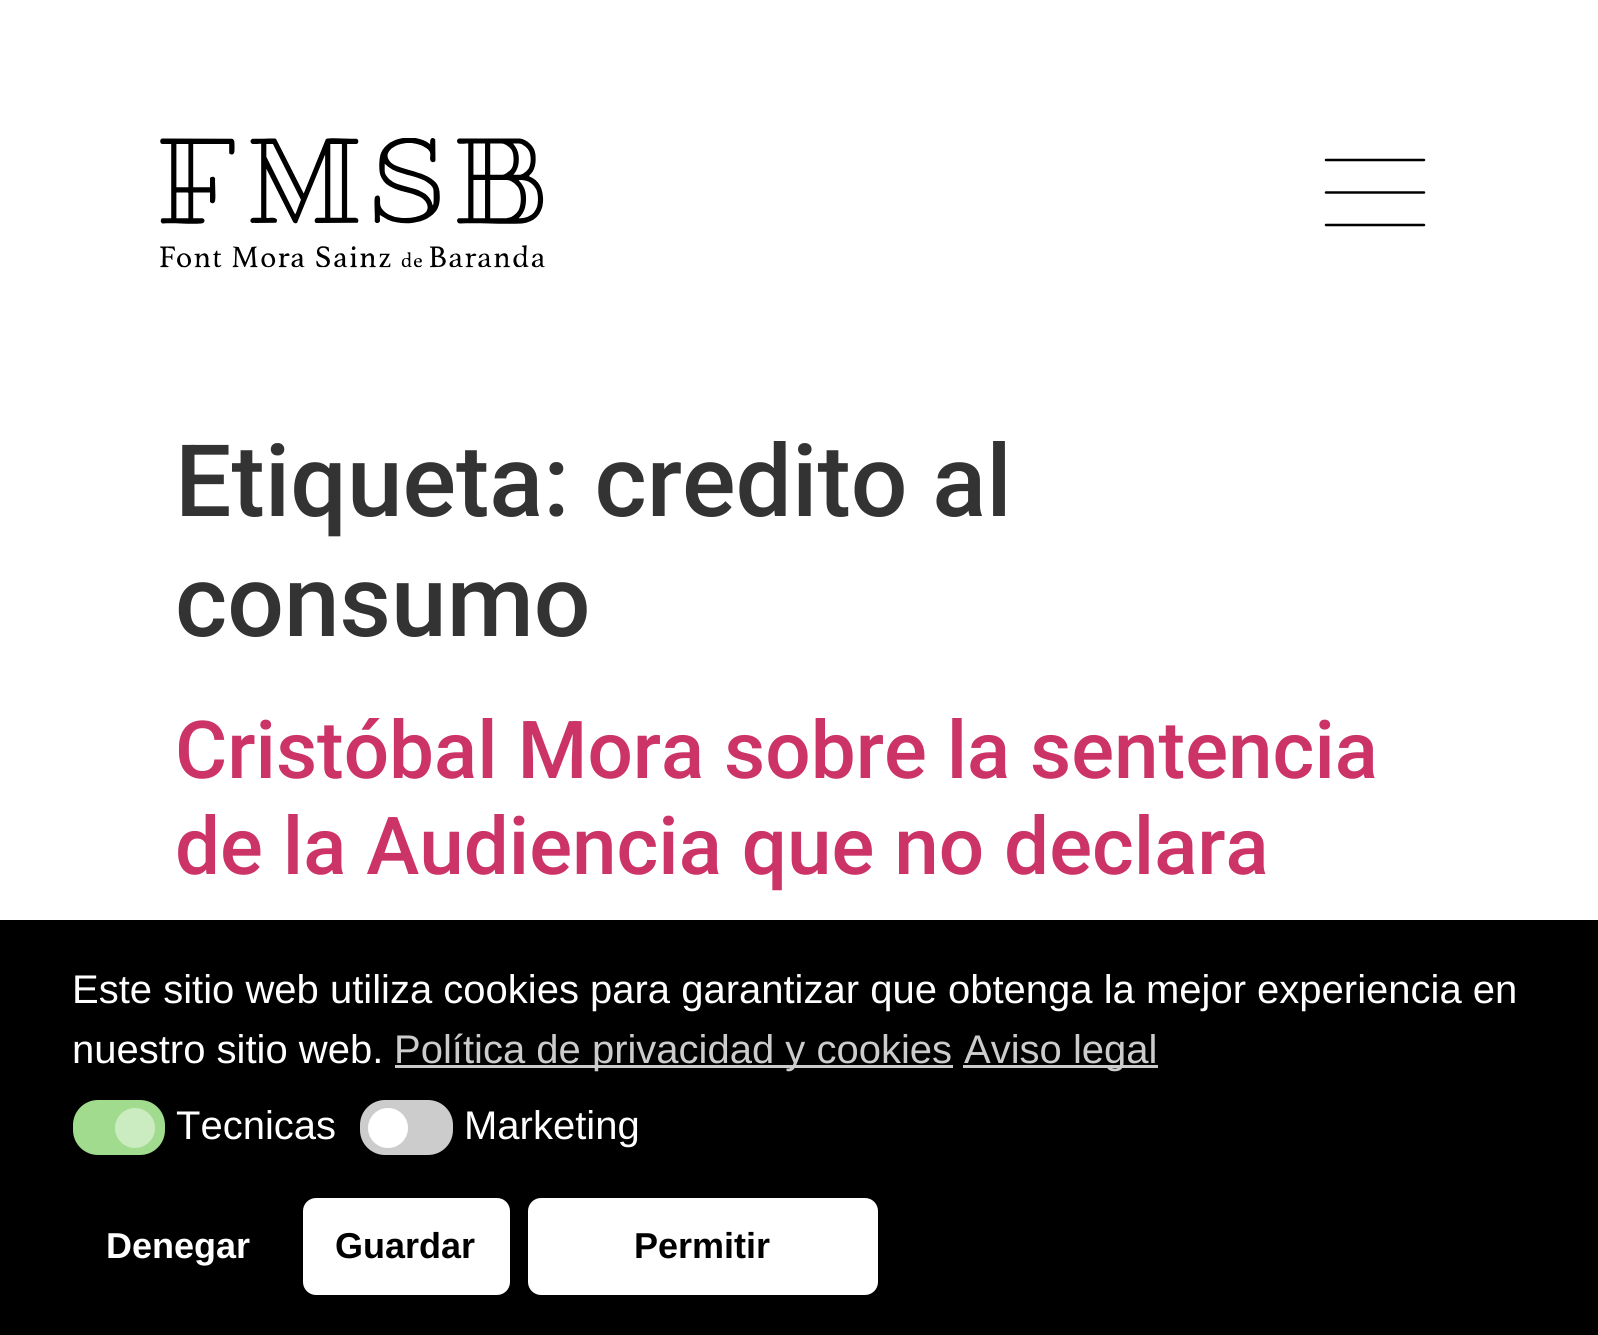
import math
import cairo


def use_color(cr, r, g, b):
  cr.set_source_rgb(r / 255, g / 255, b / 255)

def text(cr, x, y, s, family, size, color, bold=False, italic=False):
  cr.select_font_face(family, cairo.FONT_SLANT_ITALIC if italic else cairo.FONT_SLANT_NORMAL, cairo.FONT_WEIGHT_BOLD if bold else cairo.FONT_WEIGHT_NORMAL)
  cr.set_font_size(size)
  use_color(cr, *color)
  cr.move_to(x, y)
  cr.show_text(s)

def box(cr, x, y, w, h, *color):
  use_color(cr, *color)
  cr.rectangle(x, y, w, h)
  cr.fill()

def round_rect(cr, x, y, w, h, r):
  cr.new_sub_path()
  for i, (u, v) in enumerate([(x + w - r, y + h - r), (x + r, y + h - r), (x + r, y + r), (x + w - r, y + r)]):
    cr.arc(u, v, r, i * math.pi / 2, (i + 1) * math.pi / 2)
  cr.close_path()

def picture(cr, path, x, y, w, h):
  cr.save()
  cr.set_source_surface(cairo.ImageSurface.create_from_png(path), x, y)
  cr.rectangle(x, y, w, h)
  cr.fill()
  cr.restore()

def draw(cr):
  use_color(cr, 255, 255, 255)
  cr.paint()
  picture(cr, "img_01.png", 160, 138, 385, 130)
  cr.new_path()
  cr.move_to(1326, 160)
  cr.line_to(1424, 160)
  cr.move_to(1326, 192.5)
  cr.line_to(1424, 192.5)
  cr.move_to(1326, 225)
  cr.line_to(1424, 225)
  use_color(cr, 0, 0, 0)
  cr.set_line_width(2.5)
  cr.set_line_cap(cairo.LINE_CAP_ROUND)
  cr.set_line_join(cairo.LINE_JOIN_ROUND)
  cr.stroke()
  box(cr, 0, 920, 1598, 415, 0, 0, 0)
  box(cr, 395, 1065, 558, 3, 204, 204, 204)
  box(cr, 963, 1065, 195, 3, 204, 204, 204)
  use_color(cr, 160, 219, 142)
  round_rect(cr, 73, 1100, 92, 55, 25)
  cr.fill()
  use_color(cr, 203, 235, 193)
  cr.arc(135, 1128, 20, 0, 2 * math.pi)
  cr.fill()
  use_color(cr, 204, 204, 204)
  round_rect(cr, 360, 1100, 93, 55, 25)
  cr.fill()
  use_color(cr, 255, 255, 255)
  cr.arc(388, 1128, 20, 0, 2 * math.pi)
  cr.fill()
  round_rect(cr, 303, 1198, 207, 97, 13)
  cr.fill()
  round_rect(cr, 528, 1198, 350, 97, 13)
  cr.fill()
  text(cr, 175, 516, "Etiqueta: credito al", "Roboto Medium", 100, (51, 51, 51))
  text(cr, 175, 636, "consumo", "Roboto Medium", 100, (51, 51, 51))
  text(cr, 175, 778, "Cristóbal Mora sobre la sentencia", "Roboto Medium", 80, (204, 51, 102))
  text(cr, 175, 874, "de la Audiencia que no declara", "Roboto Medium", 80, (204, 51, 102))
  text(cr, 72, 1003, "Este sitio web utiliza cookies para garantizar que obtenga la mejor experiencia en", "Liberation Sans", 40, (255, 255, 255))
  text(cr, 72, 1063, "nuestro sitio web.", "Liberation Sans", 40, (255, 255, 255))
  text(cr, 394, 1063, "Política de privacidad y cookies", "Liberation Sans", 40, (204, 204, 204))
  text(cr, 964, 1063, "Aviso legal", "Liberation Sans", 40, (204, 204, 204))
  text(cr, 176, 1139, "Tecnicas", "Liberation Sans", 40, (255, 255, 255))
  text(cr, 464, 1139, "Marketing", "Liberation Sans", 40, (255, 255, 255))
  text(cr, 106, 1258, "Denegar", "Liberation Sans", 36, (255, 255, 255), bold=True)
  text(cr, 335, 1258, "Guardar", "Liberation Sans", 36, (0, 0, 0), bold=True)
  text(cr, 634, 1258, "Permitir", "Liberation Sans", 36, (0, 0, 0), bold=True)


surface = cairo.ImageSurface(cairo.FORMAT_RGB24, 1598, 1335)
cr = cairo.Context(surface)
options = cairo.FontOptions()
options.set_hint_metrics(cairo.HINT_METRICS_OFF)
options.set_hint_style(cairo.HINT_STYLE_NONE)
cr.set_font_options(options)
cr.set_miter_limit(4)
draw(cr)
surface.write_to_png("out.png")
